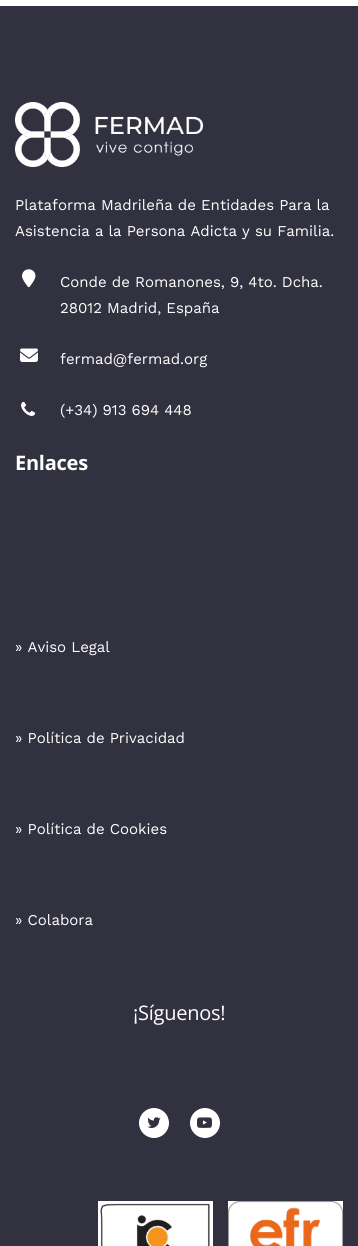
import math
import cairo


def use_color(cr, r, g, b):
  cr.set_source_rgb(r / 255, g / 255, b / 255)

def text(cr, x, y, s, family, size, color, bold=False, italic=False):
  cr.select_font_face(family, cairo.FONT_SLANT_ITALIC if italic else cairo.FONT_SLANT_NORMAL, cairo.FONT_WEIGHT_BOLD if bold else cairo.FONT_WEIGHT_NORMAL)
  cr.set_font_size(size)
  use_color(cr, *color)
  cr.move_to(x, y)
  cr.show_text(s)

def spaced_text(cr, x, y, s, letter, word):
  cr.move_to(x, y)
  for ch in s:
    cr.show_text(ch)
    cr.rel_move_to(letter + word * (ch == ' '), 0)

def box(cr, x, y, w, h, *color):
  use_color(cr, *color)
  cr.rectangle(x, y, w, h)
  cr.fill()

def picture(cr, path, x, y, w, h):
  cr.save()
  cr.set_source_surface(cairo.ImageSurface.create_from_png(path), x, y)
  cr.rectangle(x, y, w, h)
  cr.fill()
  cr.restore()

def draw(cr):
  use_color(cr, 255, 255, 255)
  cr.paint()
  box(cr, 0, 6, 358, 1240, 49, 49, 63)
  picture(cr, "img_01.png", 15, 102, 188, 65)
  picture(cr, "img_02.png", 22, 269, 14, 19)
  picture(cr, "img_03.png", 20, 348, 18, 14)
  picture(cr, "img_04.png", 21, 401, 15, 15)
  use_color(cr, 255, 255, 255)
  cr.arc(154, 1123, 15, 0, 2 * math.pi)
  cr.fill()
  picture(cr, "img_05.png", 147, 1117, 14, 11)
  cr.arc(205, 1123, 15, 0, 2 * math.pi)
  cr.fill()
  picture(cr, "img_06.png", 197, 1117, 15, 11)
  picture(cr, "img_07.png", 98, 1201, 115, 45)
  picture(cr, "img_08.png", 228, 1201, 115, 45)
  text(cr, 15, 210, "Plataforma Madrileña de Entidades Para la", "Work Sans", 15, (255, 255, 255))
  text(cr, 15, 236, "Asistencia a la Persona Adicta y su Familia.", "Work Sans", 15, (255, 255, 255))
  text(cr, 60, 287, "Conde de Romanones, 9, 4to. Dcha.", "Work Sans", 15, (255, 255, 255))
  text(cr, 60, 313, "28012 Madrid, España", "Work Sans", 15, (255, 255, 255))
  text(cr, 60, 364, "fermad@fermad.org", "Work Sans", 15, (255, 255, 255))
  text(cr, 60, 415, "(+34) 913 694 448", "Work Sans", 15, (255, 255, 255))
  cr.select_font_face("Open Sans", cairo.FONT_SLANT_NORMAL, cairo.FONT_WEIGHT_BOLD)
  cr.set_font_size(20)
  spaced_text(cr, 15, 470, "Enlaces", -0.25, 0)
  text(cr, 15, 652, "» Aviso Legal", "Work Sans", 15, (255, 255, 255))
  text(cr, 15, 743, "» Política de Privacidad", "Work Sans", 15, (255, 255, 255))
  text(cr, 15, 834, "» Política de Cookies", "Work Sans", 15, (255, 255, 255))
  text(cr, 15, 925, "» Colabora", "Work Sans", 15, (255, 255, 255))
  cr.select_font_face("Open Sans")
  cr.set_font_size(20)
  spaced_text(cr, 133, 1020, "¡Síguenos!", -0.25, 0)


surface = cairo.ImageSurface(cairo.FORMAT_RGB24, 358, 1246)
cr = cairo.Context(surface)
options = cairo.FontOptions()
options.set_hint_metrics(cairo.HINT_METRICS_OFF)
options.set_hint_style(cairo.HINT_STYLE_NONE)
cr.set_font_options(options)
cr.set_miter_limit(4)
draw(cr)
surface.write_to_png("out.png")
